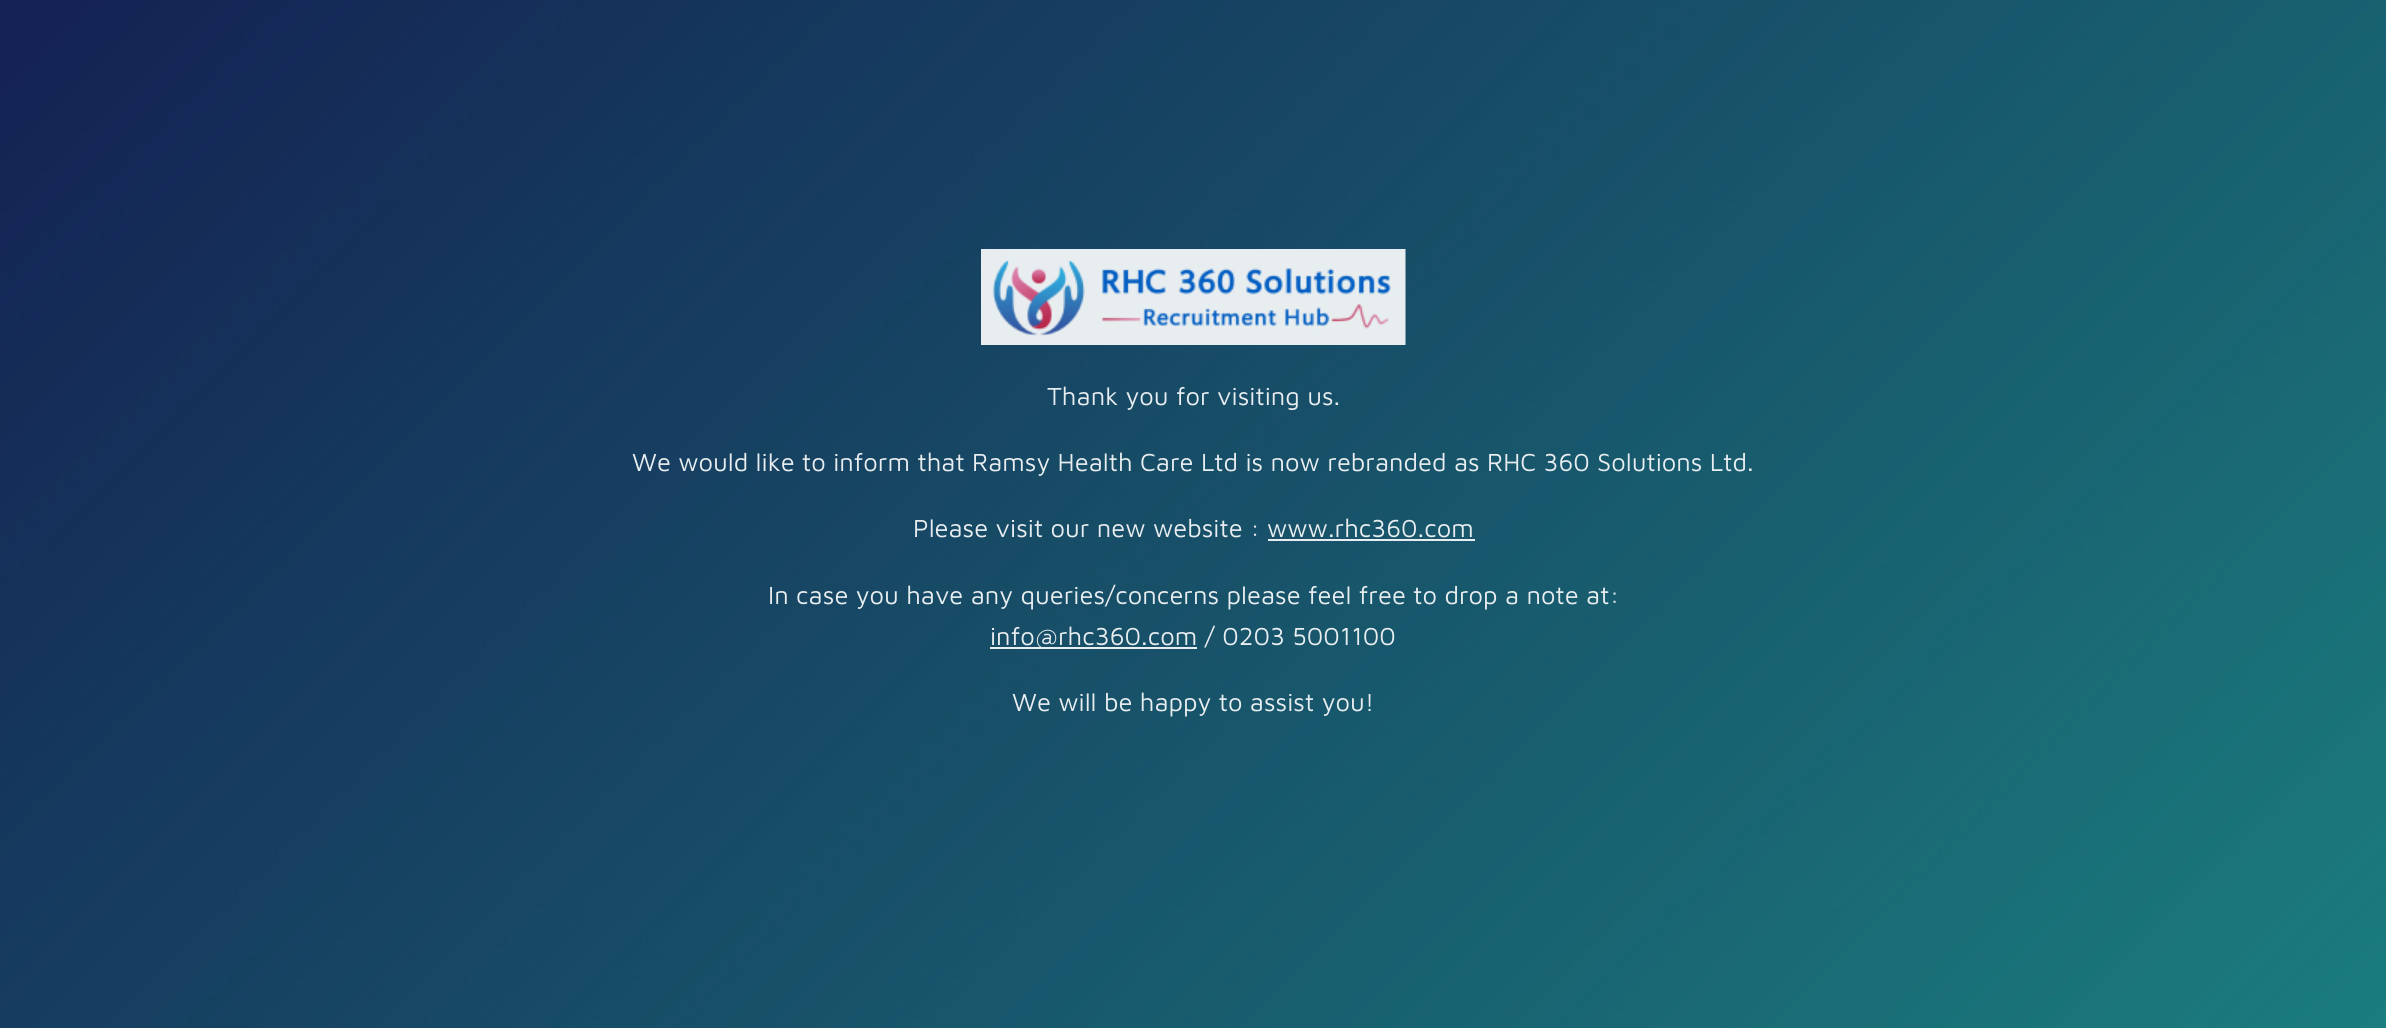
import math
import cairo


def use_color(cr, r, g, b):
  cr.set_source_rgb(r / 255, g / 255, b / 255)

def text(cr, x, y, s, family, size, color, bold=False, italic=False):
  cr.select_font_face(family, cairo.FONT_SLANT_ITALIC if italic else cairo.FONT_SLANT_NORMAL, cairo.FONT_WEIGHT_BOLD if bold else cairo.FONT_WEIGHT_NORMAL)
  cr.set_font_size(size)
  use_color(cr, *color)
  cr.move_to(x, y)
  cr.show_text(s)

def picture(cr, path, x, y, w, h):
  cr.save()
  cr.set_source_surface(cairo.ImageSurface.create_from_png(path), x, y)
  cr.rectangle(x, y, w, h)
  cr.fill()
  cr.restore()

def draw(cr):
  use_color(cr, 255, 255, 255)
  cr.paint()
  picture(cr, "img_01.png", 0, 0, 2386, 1028)
  picture(cr, "img_02.png", 981, 249, 425, 96)
  cr.set_source_rgba(1, 1, 1, 0.9)
  cr.rectangle(1268, 539, 207, 2)
  cr.fill()
  cr.rectangle(990, 647, 207, 2)
  cr.fill()
  text(cr, 1047, 405, "Thank you for visiting us.", "Maven Pro", 25.5, (232, 237, 240))
  text(cr, 632, 471, "We would like to inform that Ramsy Health Care Ltd is now rebranded as RHC 360 Solutions Ltd.", "Maven Pro", 25.5, (232, 237, 240))
  text(cr, 913, 537, "Please visit our new website :", "Maven Pro", 25.5, (232, 237, 240))
  text(cr, 1267, 537, "www.rhc360.com", "Maven Pro", 25.5, (232, 237, 240))
  text(cr, 768, 604, "In case you have any queries/concerns please feel free to drop a note at:", "Maven Pro", 25.5, (232, 237, 240))
  text(cr, 990, 645, "info@rhc360.com / 0203 5001100", "Maven Pro", 25.5, (232, 237, 240))
  text(cr, 1012, 711, "We will be happy to assist you!", "Maven Pro", 25.5, (232, 237, 240))


surface = cairo.ImageSurface(cairo.FORMAT_RGB24, 2386, 1028)
cr = cairo.Context(surface)
options = cairo.FontOptions()
options.set_hint_metrics(cairo.HINT_METRICS_OFF)
options.set_hint_style(cairo.HINT_STYLE_NONE)
cr.set_font_options(options)
cr.set_miter_limit(4)
draw(cr)
surface.write_to_png("out.png")
